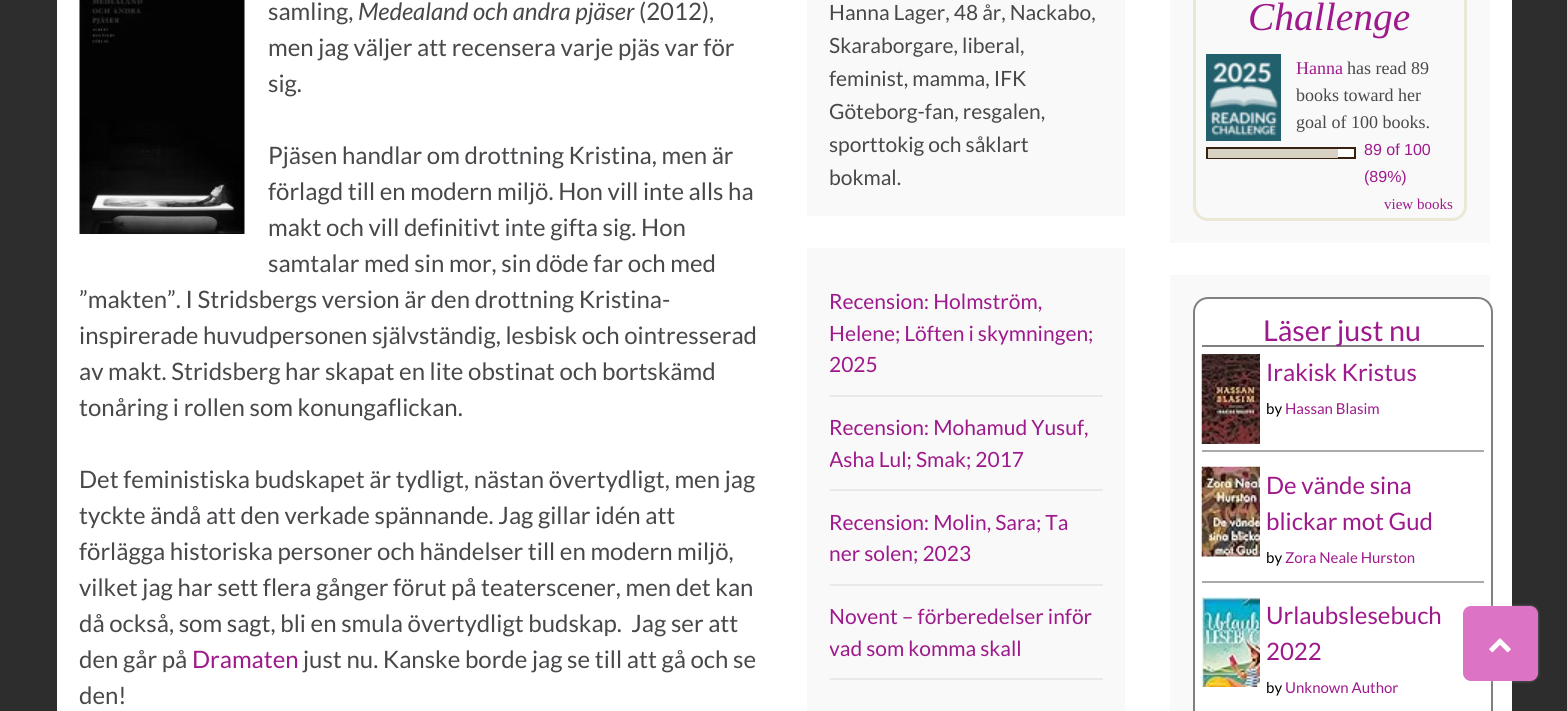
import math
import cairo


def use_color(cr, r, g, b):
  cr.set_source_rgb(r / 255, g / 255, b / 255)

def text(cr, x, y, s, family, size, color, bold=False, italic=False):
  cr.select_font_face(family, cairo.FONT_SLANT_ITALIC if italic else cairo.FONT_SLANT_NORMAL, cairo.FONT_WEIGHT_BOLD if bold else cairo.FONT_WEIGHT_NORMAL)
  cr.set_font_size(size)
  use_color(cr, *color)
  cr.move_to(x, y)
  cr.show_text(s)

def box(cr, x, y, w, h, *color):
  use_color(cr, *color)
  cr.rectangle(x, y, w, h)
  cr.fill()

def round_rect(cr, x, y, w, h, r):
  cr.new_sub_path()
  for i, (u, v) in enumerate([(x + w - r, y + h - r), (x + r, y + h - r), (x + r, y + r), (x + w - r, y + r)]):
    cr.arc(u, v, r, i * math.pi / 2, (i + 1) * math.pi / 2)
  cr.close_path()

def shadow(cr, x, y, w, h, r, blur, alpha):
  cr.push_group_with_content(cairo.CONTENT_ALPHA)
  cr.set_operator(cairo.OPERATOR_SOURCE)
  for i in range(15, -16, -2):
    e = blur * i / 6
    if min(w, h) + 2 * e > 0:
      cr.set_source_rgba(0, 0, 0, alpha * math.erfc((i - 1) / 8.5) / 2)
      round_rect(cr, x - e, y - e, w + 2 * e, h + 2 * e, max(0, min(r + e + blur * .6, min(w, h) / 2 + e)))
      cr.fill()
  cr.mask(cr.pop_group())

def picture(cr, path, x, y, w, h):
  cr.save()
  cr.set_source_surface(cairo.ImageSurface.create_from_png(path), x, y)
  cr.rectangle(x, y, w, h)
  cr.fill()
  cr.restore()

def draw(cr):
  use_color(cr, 45, 45, 45)
  cr.paint()
  box(cr, 57, 0, 1455, 711, 255, 255, 255)
  picture(cr, "img_01.png", 79, 0, 166, 234)
  box(cr, 807, 0, 318, 216, 249, 249, 249)
  box(cr, 807, 248, 318, 463, 249, 249, 249)
  box(cr, 830, 395, 273, 2, 233, 233, 233)
  box(cr, 830, 489, 273, 2, 233, 233, 233)
  box(cr, 830, 584, 273, 2, 233, 233, 233)
  box(cr, 830, 678, 273, 2, 233, 233, 233)
  box(cr, 1170, 0, 320, 243, 249, 249, 249)
  round_rect(cr, 1194.5, -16.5, 271, 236, 13.5)
  use_color(cr, 235, 232, 213)
  cr.set_line_width(3)
  cr.stroke()
  picture(cr, "img_02.png", 1206, 54, 75, 87)
  box(cr, 1338, 149, 16, 8, 255, 255, 255)
  cr.rectangle(1207, 148, 148, 10)
  use_color(cr, 56, 33, 16)
  cr.set_line_width(2)
  cr.stroke()
  box(cr, 1208, 149, 130, 9, 215, 210, 196)
  box(cr, 1170, 275, 320, 436, 249, 249, 249)
  use_color(cr, 255, 255, 255)
  round_rect(cr, 1194, 298, 298, 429, 14)
  cr.fill_preserve()
  use_color(cr, 128, 128, 128)
  cr.stroke()
  box(cr, 1202, 345, 282, 2, 128, 128, 128)
  box(cr, 1202, 450, 282, 2, 170, 170, 170)
  picture(cr, "img_03.png", 1201, 354, 59, 90)
  box(cr, 1202, 581, 282, 2, 170, 170, 170)
  picture(cr, "img_04.png", 1201, 466, 59, 91)
  picture(cr, "img_05.png", 1201, 597, 59, 90)
  use_color(cr, 255, 255, 255)
  shadow(cr, 1463, 606, 75, 75, 8, 1.5, 0.3)
  use_color(cr, 221, 115, 196)
  round_rect(cr, 1463, 606, 75, 75, 8)
  cr.fill()
  picture(cr, "img_06.png", 1489, 638, 22, 15)
  text(cr, 268, 20, "samling,", "Lato", 24, (74, 71, 75))
  text(cr, 358, 20, "Medealand och andra pjäser", "Lato", 24, (74, 71, 75), italic=True)
  text(cr, 639, 20, "(2012),", "Lato", 24, (74, 71, 75))
  text(cr, 268, 56, "men jag väljer att recensera varje pjäs var för", "Lato", 24, (74, 71, 75))
  text(cr, 268, 92, "sig.", "Lato", 24, (74, 71, 75))
  text(cr, 268, 164, "Pjäsen handlar om drottning Kristina, men är", "Lato", 24, (74, 71, 75))
  text(cr, 268, 200, "förlagd till en modern miljö. Hon vill inte alls ha", "Lato", 24, (74, 71, 75))
  text(cr, 268, 236, "makt och vill definitivt inte gifta sig. Hon", "Lato", 24, (74, 71, 75))
  text(cr, 268, 272, "samtalar med sin mor, sin döde far och med", "Lato", 24, (74, 71, 75))
  text(cr, 79, 308, "”makten”. I Stridsbergs version är den drottning Kristina-", "Lato", 24, (74, 71, 75))
  text(cr, 79, 344, "inspirerade huvudpersonen självständig, lesbisk och ointresserad", "Lato", 24, (74, 71, 75))
  text(cr, 79, 380, "av makt. Stridsberg har skapat en lite obstinat och bortskämd", "Lato", 24, (74, 71, 75))
  text(cr, 79, 416, "tonåring i rollen som konungaflickan.", "Lato", 24, (74, 71, 75))
  text(cr, 79, 488, "Det feministiska budskapet är tydligt, nästan övertydligt, men jag", "Lato", 24, (74, 71, 75))
  text(cr, 79, 524, "tyckte ändå att den verkade spännande. Jag gillar idén att", "Lato", 24, (74, 71, 75))
  text(cr, 79, 560, "förlägga historiska personer och händelser till en modern miljö,", "Lato", 24, (74, 71, 75))
  text(cr, 79, 596, "vilket jag har sett flera gånger förut på teaterscener, men det kan", "Lato", 24, (74, 71, 75))
  text(cr, 79, 632, "då också, som sagt, bli en smula övertydligt budskap.  Jag ser att", "Lato", 24, (74, 71, 75))
  text(cr, 79, 668, "den går på", "Lato", 24, (74, 71, 75))
  text(cr, 192, 668, "Dramaten", "Lato", 24, (158, 26, 140))
  text(cr, 303, 668, "just nu. Kanske borde jag se till att gå och se", "Lato", 24, (74, 71, 75))
  text(cr, 79, 704, "den!", "Lato", 24, (74, 71, 75))
  text(cr, 829, 20, "Hanna Lager, 48 år, Nackabo,", "Lato", 21, (74, 71, 75))
  text(cr, 829, 53, "Skaraborgare, liberal,", "Lato", 21, (74, 71, 75))
  text(cr, 829, 86, "feminist, mamma, IFK", "Lato", 21, (74, 71, 75))
  text(cr, 829, 119, "Göteborg-fan, resgalen,", "Lato", 21, (74, 71, 75))
  text(cr, 829, 152, "sporttokig och såklart", "Lato", 21, (74, 71, 75))
  text(cr, 829, 185, "bokmal.", "Lato", 21, (74, 71, 75))
  text(cr, 829, 309, "Recension: Holmström,", "Lato", 21, (158, 26, 140))
  text(cr, 829, 341, "Helene; Löften i skymningen;", "Lato", 21, (158, 26, 140))
  text(cr, 829, 372, "2025", "Lato", 21, (158, 26, 140))
  text(cr, 829, 435, "Recension: Mohamud Yusuf,", "Lato", 21, (158, 26, 140))
  cr.save()
  cr.rectangle(830, 396, 273, 93)
  cr.clip()
  text(cr, 829, 467, "Asha Lul; Smak; 2017", "Lato", 21, (158, 26, 140))
  cr.restore()
  text(cr, 829, 530, "Recension: Molin, Sara; Ta", "Lato", 21, (158, 26, 140))
  text(cr, 829, 561, "ner solen; 2023", "Lato", 21, (158, 26, 140))
  text(cr, 829, 624, "Novent – förberedelser inför", "Lato", 21, (158, 26, 140))
  cr.save()
  cr.rectangle(830, 585, 273, 93)
  cr.clip()
  text(cr, 829, 656, "vad som komma skall", "Lato", 21, (158, 26, 140))
  cr.restore()
  text(cr, 1248, 30, "Challenge", "Liberation Serif", 39.5, (158, 26, 140), italic=True)
  text(cr, 1296, 74, "Hanna", "Liberation Serif", 18, (158, 26, 140))
  text(cr, 1347, 74, "has read 89", "Liberation Serif", 18, (74, 71, 75))
  text(cr, 1296, 101, "books toward her", "Liberation Serif", 18, (74, 71, 75))
  text(cr, 1296, 128, "goal of 100 books.", "Liberation Serif", 18, (74, 71, 75))
  text(cr, 1364, 155, "89 of 100", "Liberation Sans", 16, (158, 26, 140))
  text(cr, 1364, 182, "(89%)", "Liberation Sans", 16, (158, 26, 140))
  text(cr, 1384, 209, "view books", "Liberation Serif", 15, (158, 26, 140))
  text(cr, 1263, 341, "Läser just nu", "Lato", 28.75, (158, 26, 140))
  text(cr, 1266, 381, "Irakisk Kristus", "Lato", 24, (158, 26, 140))
  text(cr, 1266, 414, "by", "Lato", 15, (0, 0, 0))
  text(cr, 1285, 414, "Hassan Blasim", "Lato", 15, (158, 26, 140))
  text(cr, 1266, 494, "De vände sina", "Lato", 24, (158, 26, 140))
  text(cr, 1266, 530, "blickar mot Gud", "Lato", 24, (158, 26, 140))
  text(cr, 1266, 563, "by", "Lato", 15, (0, 0, 0))
  text(cr, 1285, 563, "Zora Neale Hurston", "Lato", 15, (158, 26, 140))
  text(cr, 1266, 624, "Urlaubslesebuch", "Lato", 24, (158, 26, 140))
  text(cr, 1266, 660, "2022", "Lato", 24, (158, 26, 140))
  text(cr, 1266, 693, "by", "Lato", 15, (0, 0, 0))
  text(cr, 1285, 693, "Unknown Author", "Lato", 15, (158, 26, 140))


surface = cairo.ImageSurface(cairo.FORMAT_RGB24, 1567, 711)
cr = cairo.Context(surface)
options = cairo.FontOptions()
options.set_hint_metrics(cairo.HINT_METRICS_OFF)
options.set_hint_style(cairo.HINT_STYLE_NONE)
cr.set_font_options(options)
cr.set_miter_limit(4)
draw(cr)
surface.write_to_png("out.png")
